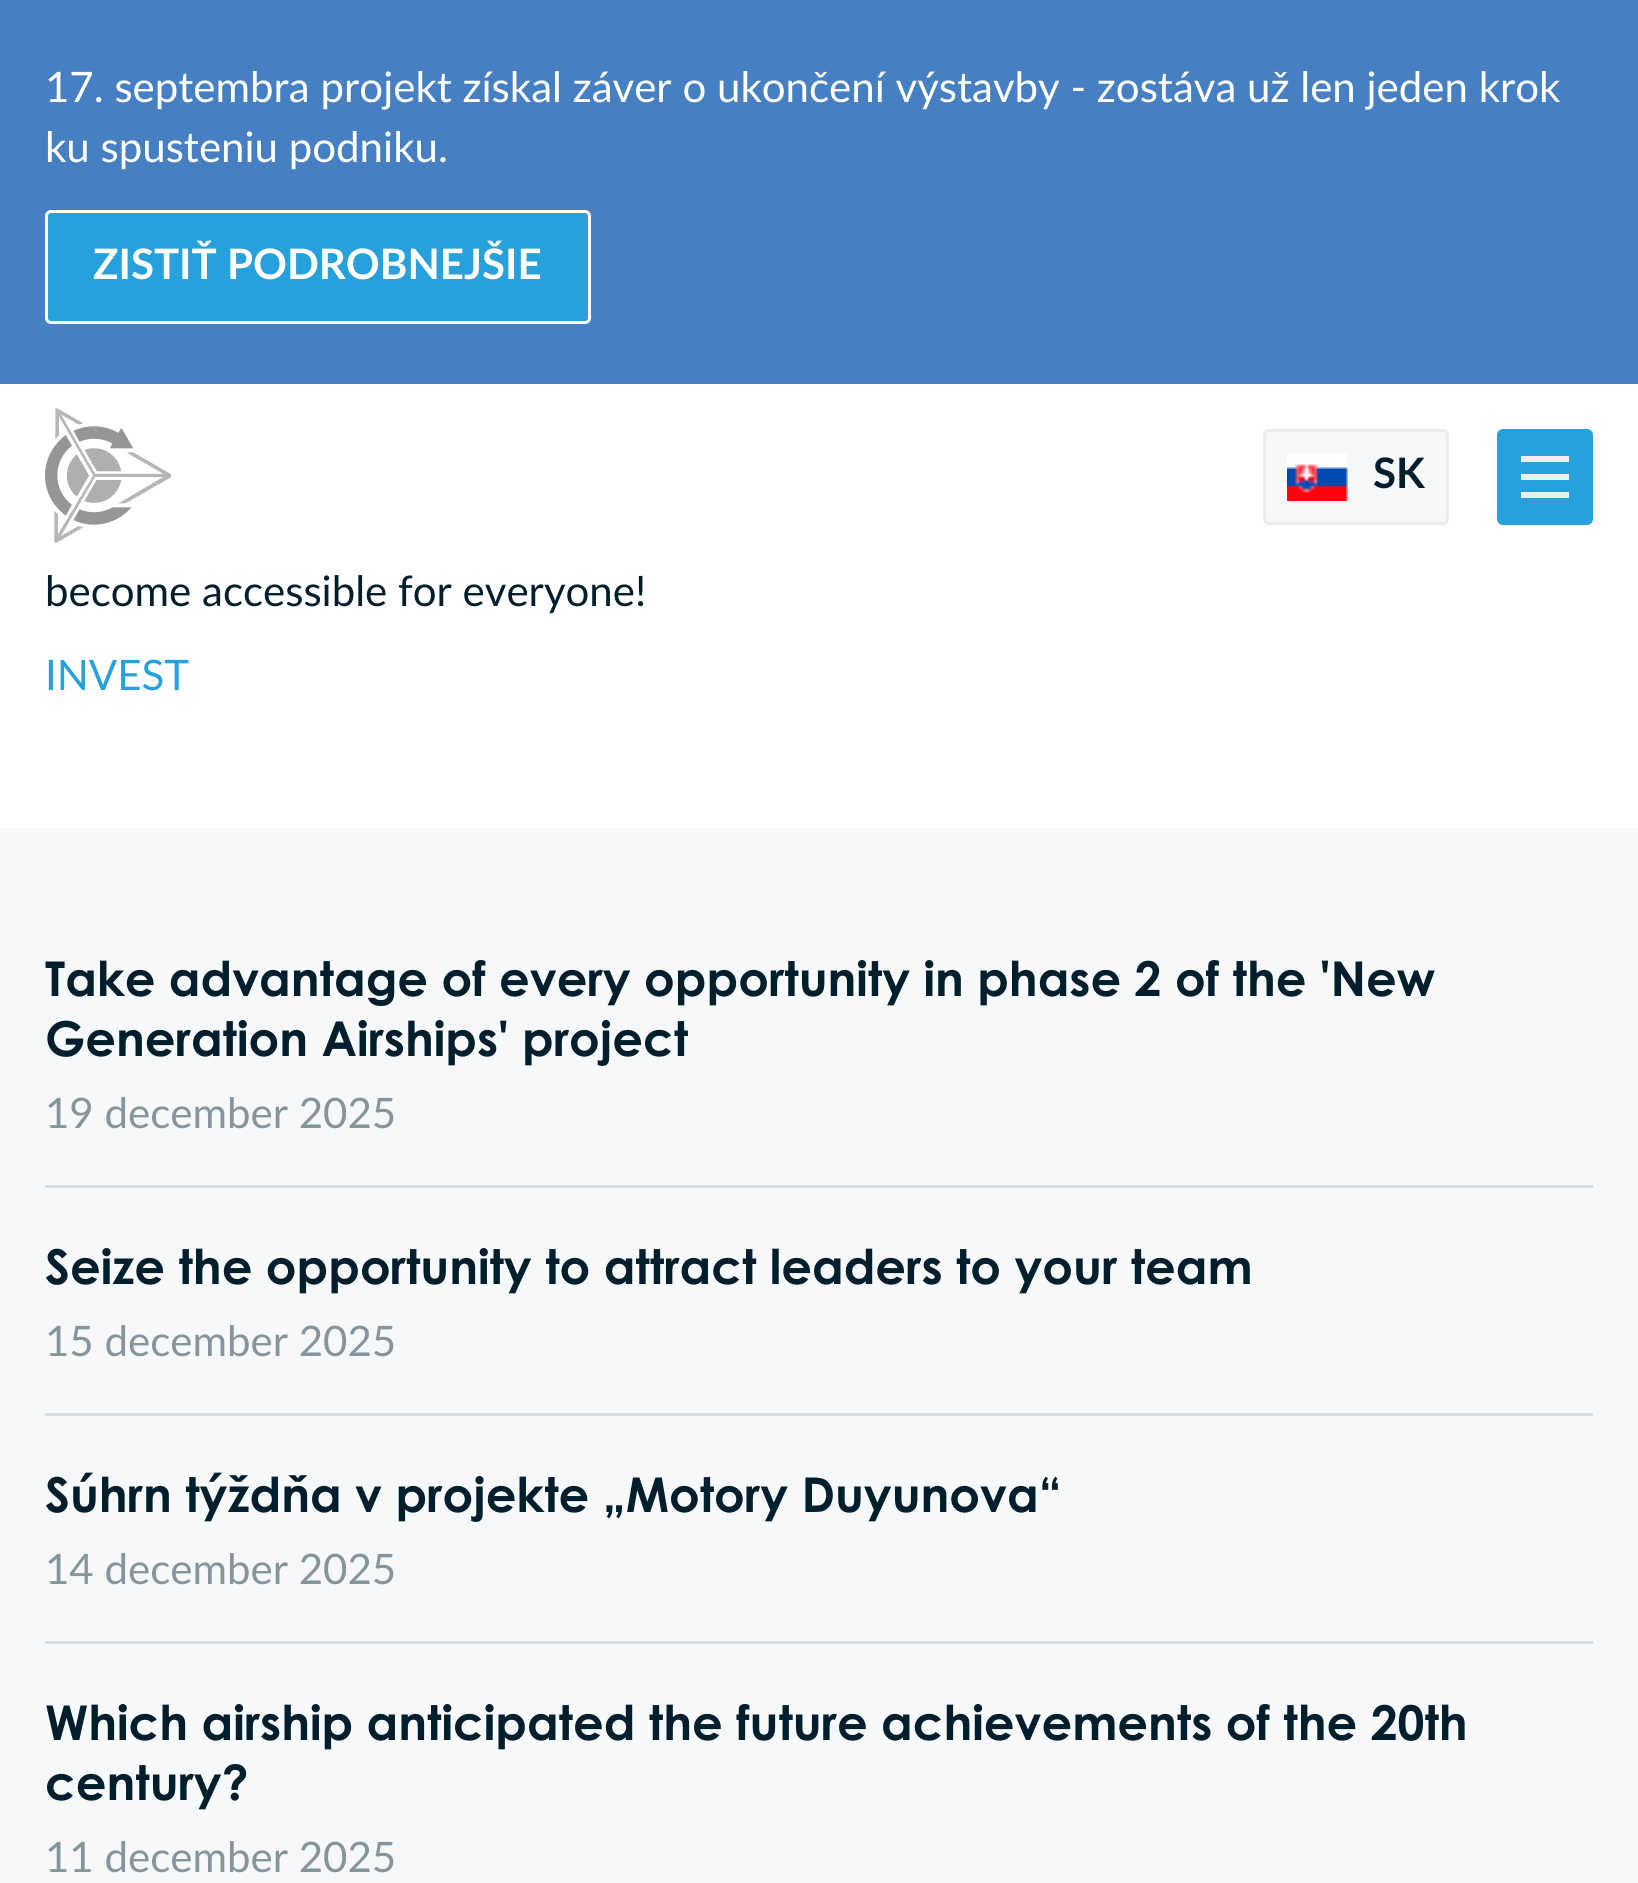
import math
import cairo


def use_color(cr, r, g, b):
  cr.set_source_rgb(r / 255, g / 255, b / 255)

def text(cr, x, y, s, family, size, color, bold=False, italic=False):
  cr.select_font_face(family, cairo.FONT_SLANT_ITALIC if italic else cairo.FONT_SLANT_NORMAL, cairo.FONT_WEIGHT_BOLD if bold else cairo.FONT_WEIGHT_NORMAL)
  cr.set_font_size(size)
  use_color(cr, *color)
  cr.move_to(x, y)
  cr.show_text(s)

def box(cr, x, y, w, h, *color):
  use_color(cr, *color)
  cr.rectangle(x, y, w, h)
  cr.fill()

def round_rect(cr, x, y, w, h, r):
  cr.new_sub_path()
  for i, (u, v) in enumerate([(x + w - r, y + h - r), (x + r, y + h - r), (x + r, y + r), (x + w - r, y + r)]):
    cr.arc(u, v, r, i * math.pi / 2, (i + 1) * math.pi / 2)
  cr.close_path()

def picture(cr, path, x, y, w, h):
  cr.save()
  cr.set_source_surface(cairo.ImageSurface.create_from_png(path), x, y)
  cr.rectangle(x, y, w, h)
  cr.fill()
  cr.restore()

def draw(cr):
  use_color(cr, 255, 255, 255)
  cr.paint()
  box(cr, 0, 0, 1638, 384, 70, 128, 194)
  use_color(cr, 39, 161, 219)
  round_rect(cr, 46.5, 211.5, 543, 111, 4.5)
  cr.fill_preserve()
  use_color(cr, 255, 255, 255)
  cr.set_line_width(3)
  cr.stroke()
  picture(cr, "img_01.png", 45, 408, 126, 135)
  use_color(cr, 246, 248, 250)
  round_rect(cr, 1264.5, 430.5, 183, 93, 4.5)
  cr.fill_preserve()
  use_color(cr, 234, 236, 238)
  cr.stroke()
  picture(cr, "img_02.png", 1287, 453, 61, 48)
  use_color(cr, 39, 161, 219)
  round_rect(cr, 1497, 429, 96, 96, 6)
  cr.fill()
  box(cr, 1521, 456, 48, 6, 238, 238, 238)
  box(cr, 1521, 474, 48, 6, 238, 238, 238)
  box(cr, 1521, 492, 48, 6, 238, 238, 238)
  box(cr, 0, 828, 1638, 1055, 246, 248, 250)
  box(cr, 45, 1185, 1548, 3, 215, 220, 222)
  box(cr, 45, 1413, 1548, 3, 215, 220, 222)
  box(cr, 45, 1641, 1548, 3, 215, 220, 222)
  text(cr, 45, 102, "17. septembra projekt získal záver o ukončení výstavby - zostáva už len jeden krok", "Lato", 42, (255, 255, 255))
  text(cr, 45, 162, "ku spusteniu podniku.", "Lato", 42, (255, 255, 255))
  text(cr, 93, 279, "ZISTIŤ PODROBNEJŠIE", "Lato", 42, (255, 255, 255), bold=True)
  text(cr, 1373, 488, "SK", "Lato", 42, (0, 30, 44), bold=True)
  text(cr, 45, 606, "become accessible for everyone!", "Lato", 42, (0, 30, 44))
  text(cr, 45, 690, "INVEST", "Lato", 42, (39, 161, 219))
  text(cr, 45, 996, "Take advantage of every opportunity in phase 2 of the 'New", "Century Gothic", 48, (0, 30, 44), bold=True)
  text(cr, 45, 1056, "Generation Airships' project", "Century Gothic", 48, (0, 30, 44), bold=True)
  text(cr, 45, 1128, "19 december 2025", "Lato", 42, (134, 148, 155))
  text(cr, 45, 1284, "Seize the opportunity to attract leaders to your team", "Century Gothic", 48, (0, 30, 44), bold=True)
  text(cr, 45, 1356, "15 december 2025", "Lato", 42, (134, 148, 155))
  text(cr, 45, 1512, "Súhrn týždňa v projekte „Motory Duyunova“", "Century Gothic", 48, (0, 30, 44), bold=True)
  text(cr, 45, 1584, "14 december 2025", "Lato", 42, (134, 148, 155))
  text(cr, 45, 1740, "Which airship anticipated the future achievements of the 20th", "Century Gothic", 48, (0, 30, 44), bold=True)
  text(cr, 45, 1800, "century?", "Century Gothic", 48, (0, 30, 44), bold=True)
  text(cr, 45, 1872, "11 december 2025", "Lato", 42, (134, 148, 155))


surface = cairo.ImageSurface(cairo.FORMAT_RGB24, 1638, 1883)
cr = cairo.Context(surface)
options = cairo.FontOptions()
options.set_hint_metrics(cairo.HINT_METRICS_OFF)
options.set_hint_style(cairo.HINT_STYLE_NONE)
cr.set_font_options(options)
cr.set_miter_limit(4)
draw(cr)
surface.write_to_png("out.png")
